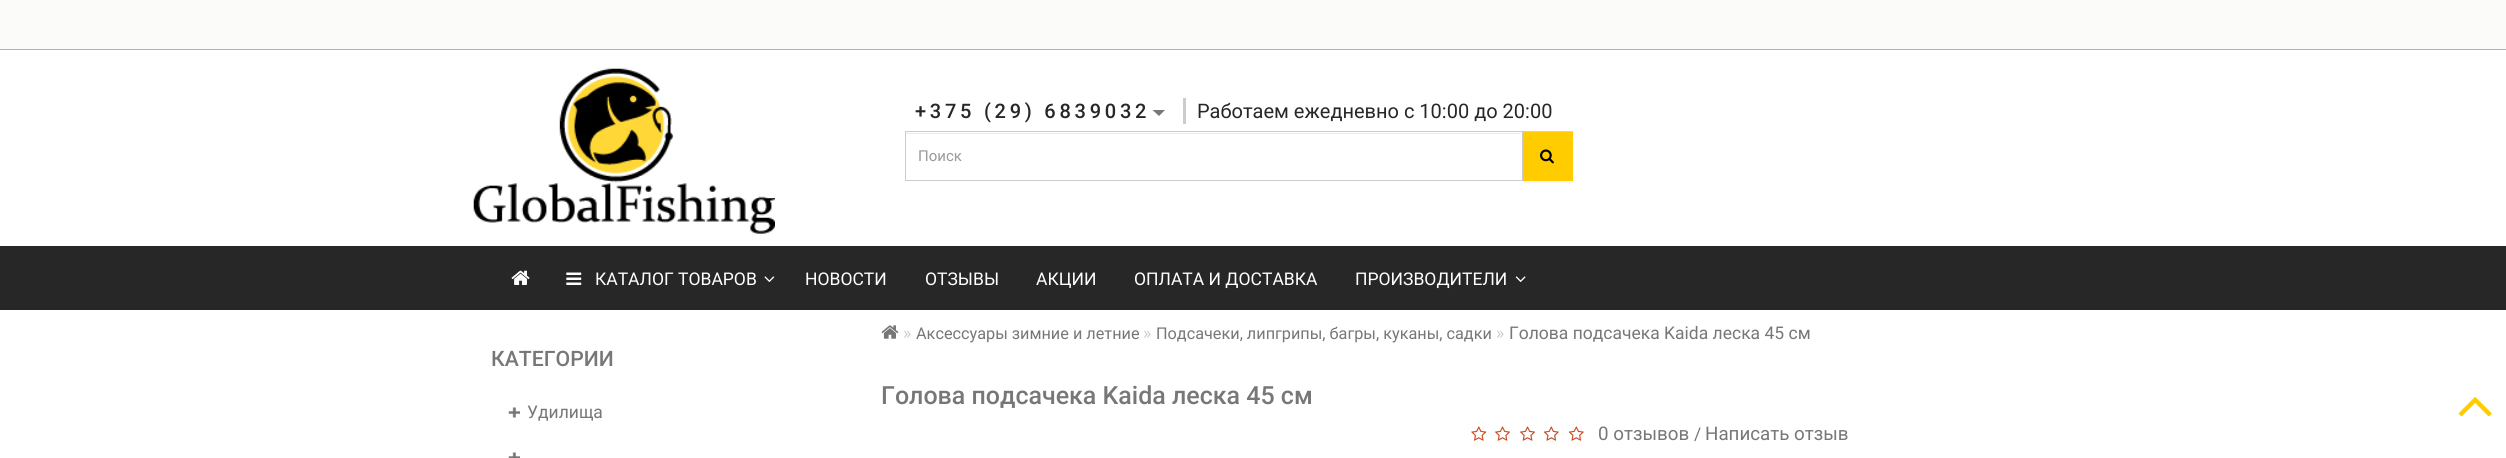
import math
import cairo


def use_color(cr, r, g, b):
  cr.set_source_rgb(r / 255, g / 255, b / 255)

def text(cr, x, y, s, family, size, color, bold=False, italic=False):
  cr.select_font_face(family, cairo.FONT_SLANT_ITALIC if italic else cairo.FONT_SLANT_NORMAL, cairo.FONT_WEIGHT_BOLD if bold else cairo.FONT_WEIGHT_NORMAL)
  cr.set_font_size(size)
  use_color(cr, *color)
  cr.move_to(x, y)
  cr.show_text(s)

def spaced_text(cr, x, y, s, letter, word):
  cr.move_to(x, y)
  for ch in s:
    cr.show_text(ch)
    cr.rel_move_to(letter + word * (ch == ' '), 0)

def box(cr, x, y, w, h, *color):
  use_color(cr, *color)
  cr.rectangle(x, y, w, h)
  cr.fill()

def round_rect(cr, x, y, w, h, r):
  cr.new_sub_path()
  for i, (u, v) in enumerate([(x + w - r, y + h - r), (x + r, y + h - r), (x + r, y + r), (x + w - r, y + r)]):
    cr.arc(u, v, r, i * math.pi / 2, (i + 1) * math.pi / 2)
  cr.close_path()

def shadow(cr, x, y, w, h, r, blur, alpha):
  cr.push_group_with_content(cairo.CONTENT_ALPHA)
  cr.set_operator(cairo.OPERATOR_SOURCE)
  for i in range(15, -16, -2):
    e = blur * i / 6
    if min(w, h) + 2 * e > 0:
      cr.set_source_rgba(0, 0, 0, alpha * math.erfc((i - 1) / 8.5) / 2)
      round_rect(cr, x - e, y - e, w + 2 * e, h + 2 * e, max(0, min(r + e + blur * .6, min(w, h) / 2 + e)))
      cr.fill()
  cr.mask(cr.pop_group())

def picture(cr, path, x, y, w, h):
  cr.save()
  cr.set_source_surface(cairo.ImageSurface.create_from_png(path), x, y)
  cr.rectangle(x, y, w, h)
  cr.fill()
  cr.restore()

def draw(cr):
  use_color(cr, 255, 255, 255)
  cr.paint()
  box(cr, 0, 0, 2506, 49, 251, 251, 250)
  box(cr, 0, 49, 2506, 1, 177, 177, 178)
  picture(cr, "img_01.png", 473, 68, 302, 166)
  use_color(cr, 119, 119, 119)
  cr.new_path()
  cr.move_to(1152.5, 110)
  cr.line_to(1165, 110)
  cr.line_to(1159, 116)
  cr.close_path()
  cr.fill()
  box(cr, 1183, 98, 3, 26, 204, 204, 204)
  box(cr, 906, 133, 615, 1, 236, 236, 236)
  cr.rectangle(905.5, 131.5, 617, 49)
  use_color(cr, 204, 204, 204)
  cr.set_line_width(1)
  cr.stroke()
  use_color(cr, 0, 0, 0)
  shadow(cr, 1523, 133, 50, 50, 0, 1, 0.05)
  box(cr, 1523, 132, 50, 49, 255, 204, 0)
  box(cr, 1523, 131, 50, 1, 255, 214, 51)
  picture(cr, "img_02.png", 1540, 149, 14, 15)
  box(cr, 0, 246, 2506, 64, 39, 39, 39)
  picture(cr, "img_03.png", 511, 270, 19, 15)
  picture(cr, "img_04.png", 566, 272, 16, 13)
  picture(cr, "img_05.png", 764, 276, 11, 6)
  picture(cr, "img_06.png", 1515, 276, 11, 6)
  picture(cr, "img_07.png", 508, 407, 12, 11)
  picture(cr, "img_08.png", 508, 452, 12, 6)
  picture(cr, "img_09.png", 881, 325, 18, 14)
  picture(cr, "img_10.png", 1471, 426, 16, 15)
  picture(cr, "img_11.png", 1495, 426, 15, 15)
  picture(cr, "img_11.png", 1520, 426, 15, 15)
  picture(cr, "img_12.png", 1543, 426, 16, 15)
  picture(cr, "img_12.png", 1568, 426, 16, 15)
  picture(cr, "img_13.png", 2458, 397, 34, 20)
  cr.select_font_face("Roboto Medium")
  cr.set_font_size(20)
  use_color(cr, 42, 38, 35)
  spaced_text(cr, 915, 118, "+375 (29) 6839032", 3.75, 0)
  text(cr, 1197, 118, "Работаем ежедневно с 10:00 до 20:00", "Roboto", 20, (42, 38, 35))
  text(cr, 918, 161, "Поиск", "Roboto", 15, (153, 153, 153))
  text(cr, 595, 285, "КАТАЛОГ ТОВАРОВ", "Roboto", 17.5, (255, 255, 255))
  text(cr, 805, 285, "НОВОСТИ", "Roboto", 17.5, (255, 255, 255))
  text(cr, 925, 285, "ОТЗЫВЫ", "Roboto", 17.5, (255, 255, 255))
  text(cr, 1036, 285, "АКЦИИ", "Roboto", 17.5, (255, 255, 255))
  text(cr, 1134, 285, "ОПЛАТА И ДОСТАВКА", "Roboto", 17.5, (255, 255, 255))
  text(cr, 1355, 285, "ПРОИЗВОДИТЕЛИ", "Roboto", 17.5, (255, 255, 255))
  text(cr, 491, 366, "КАТЕГОРИИ", "Roboto Medium", 21.25, (119, 119, 119))
  text(cr, 527, 418, "Удилища", "Roboto", 17.5, (119, 119, 119))
  text(cr, 903, 339, "»", "Roboto", 17.5, (204, 204, 204))
  text(cr, 916, 339, "Аксессуары зимние и летние", "Roboto", 16.25, (119, 119, 119))
  text(cr, 1143, 339, "»", "Roboto", 17.5, (204, 204, 204))
  text(cr, 1156, 339, "Подсачеки, липгрипы, багры, куканы, садки", "Roboto", 16.25, (119, 119, 119))
  text(cr, 1496, 339, "»", "Roboto", 17.5, (204, 204, 204))
  text(cr, 1509, 339, "Голова подсачека Kaida леска 45 см", "Roboto", 17.5, (119, 119, 119))
  text(cr, 881, 404, "Голова подсачека Kaida леска 45 см", "Roboto Medium", 25, (119, 119, 119))
  text(cr, 1598, 440, "0 отзывов", "Roboto", 18.75, (119, 119, 119))
  text(cr, 1694, 440, "/", "Roboto", 17.5, (119, 119, 119))
  text(cr, 1705, 440, "Написать отзыв", "Roboto", 18.75, (119, 119, 119))


surface = cairo.ImageSurface(cairo.FORMAT_RGB24, 2506, 458)
cr = cairo.Context(surface)
options = cairo.FontOptions()
options.set_hint_metrics(cairo.HINT_METRICS_OFF)
options.set_hint_style(cairo.HINT_STYLE_NONE)
cr.set_font_options(options)
cr.set_miter_limit(4)
draw(cr)
surface.write_to_png("out.png")
